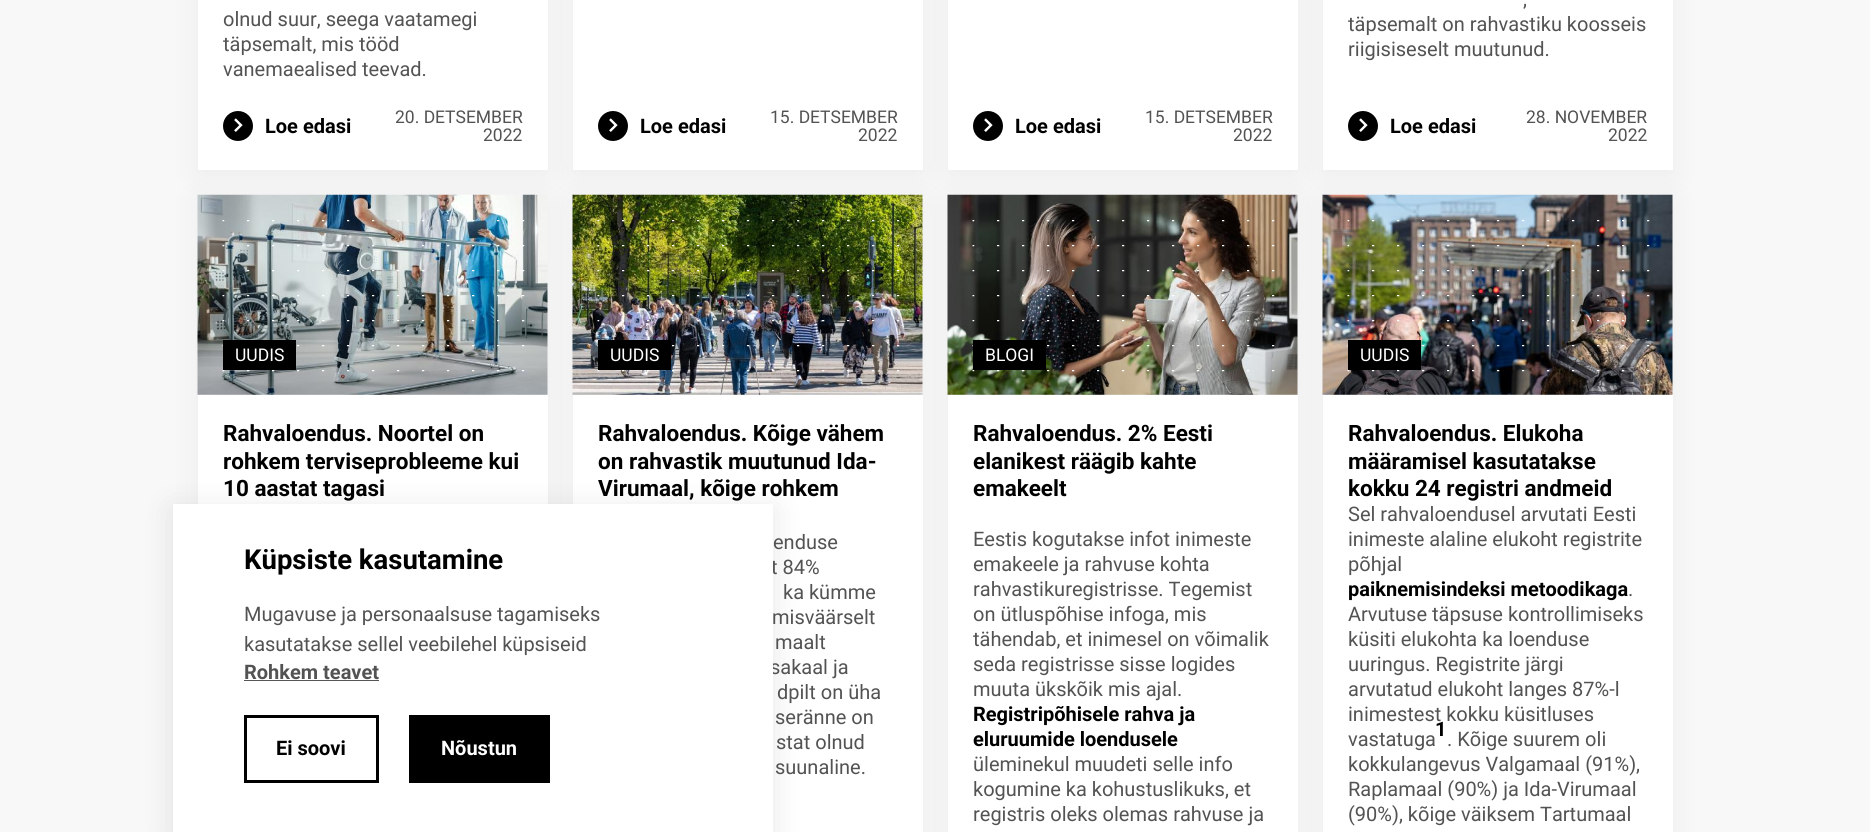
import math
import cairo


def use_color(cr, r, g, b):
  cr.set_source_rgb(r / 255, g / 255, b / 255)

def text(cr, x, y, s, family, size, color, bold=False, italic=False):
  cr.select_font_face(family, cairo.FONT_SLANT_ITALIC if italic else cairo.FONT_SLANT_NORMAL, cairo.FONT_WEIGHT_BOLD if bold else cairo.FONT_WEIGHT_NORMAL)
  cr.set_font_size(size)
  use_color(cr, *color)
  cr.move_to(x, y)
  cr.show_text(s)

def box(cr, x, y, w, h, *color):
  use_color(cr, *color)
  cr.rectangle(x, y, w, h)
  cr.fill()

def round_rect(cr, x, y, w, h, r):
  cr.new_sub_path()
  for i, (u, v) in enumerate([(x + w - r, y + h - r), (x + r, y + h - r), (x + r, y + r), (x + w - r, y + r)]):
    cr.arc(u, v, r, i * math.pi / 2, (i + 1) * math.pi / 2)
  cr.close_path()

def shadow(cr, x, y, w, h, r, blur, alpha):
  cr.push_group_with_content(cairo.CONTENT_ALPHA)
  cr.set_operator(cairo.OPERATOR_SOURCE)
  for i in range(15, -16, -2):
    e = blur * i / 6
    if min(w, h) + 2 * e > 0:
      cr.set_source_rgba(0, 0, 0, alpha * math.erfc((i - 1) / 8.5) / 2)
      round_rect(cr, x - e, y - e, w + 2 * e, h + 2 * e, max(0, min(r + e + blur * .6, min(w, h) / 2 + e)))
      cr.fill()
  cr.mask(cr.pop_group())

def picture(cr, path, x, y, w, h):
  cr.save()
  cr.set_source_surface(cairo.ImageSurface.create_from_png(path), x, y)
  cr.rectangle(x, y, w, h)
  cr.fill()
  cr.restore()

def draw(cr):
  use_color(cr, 248, 248, 248)
  cr.paint()
  use_color(cr, 0, 0, 0)
  shadow(cr, 198, -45, 350, 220, 0, 15, 0.05)
  box(cr, 198, 0, 350, 170, 255, 255, 255)
  use_color(cr, 0, 0, 0)
  cr.arc(238, 126, 13.5, 0, 2 * math.pi)
  cr.fill_preserve()
  cr.set_line_width(3)
  cr.stroke()
  picture(cr, "img_01.png", 234, 118, 9, 14)
  use_color(cr, 0, 0, 0)
  shadow(cr, 573, -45, 350, 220, 0, 15, 0.05)
  box(cr, 573, 0, 350, 170, 255, 255, 255)
  use_color(cr, 0, 0, 0)
  cr.arc(613, 126, 13.5, 0, 2 * math.pi)
  cr.fill_preserve()
  cr.stroke()
  picture(cr, "img_01.png", 609, 118, 9, 14)
  use_color(cr, 0, 0, 0)
  shadow(cr, 948, -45, 350, 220, 0, 15, 0.05)
  box(cr, 948, 0, 350, 170, 255, 255, 255)
  use_color(cr, 0, 0, 0)
  cr.arc(988, 126, 13.5, 0, 2 * math.pi)
  cr.fill_preserve()
  cr.stroke()
  picture(cr, "img_01.png", 984, 118, 9, 14)
  use_color(cr, 0, 0, 0)
  shadow(cr, 1323, -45, 350, 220, 0, 15, 0.05)
  box(cr, 1323, 0, 350, 170, 255, 255, 255)
  use_color(cr, 0, 0, 0)
  cr.arc(1363, 126, 13.5, 0, 2 * math.pi)
  cr.fill_preserve()
  cr.stroke()
  picture(cr, "img_01.png", 1359, 118, 9, 14)
  use_color(cr, 0, 0, 0)
  shadow(cr, 198, 200, 350, 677, 0, 15, 0.05)
  box(cr, 198, 395, 350, 109, 255, 255, 255)
  use_color(cr, 0, 0, 0)
  shadow(cr, 573, 200, 350, 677, 0, 15, 0.05)
  picture(cr, "img_02.png", 197, 194, 351, 201)
  picture(cr, "img_03.png", 222, 220, 303, 152)
  box(cr, 223, 340, 73, 30, 0, 0, 0)
  box(cr, 573, 395, 350, 437, 255, 255, 255)
  use_color(cr, 0, 0, 0)
  shadow(cr, 948, 200, 350, 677, 0, 15, 0.05)
  picture(cr, "img_04.png", 572, 194, 351, 201)
  picture(cr, "img_05.png", 597, 220, 303, 152)
  box(cr, 598, 340, 73, 30, 0, 0, 0)
  box(cr, 948, 395, 350, 437, 255, 255, 255)
  use_color(cr, 0, 0, 0)
  shadow(cr, 1323, 200, 350, 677, 0, 15, 0.05)
  picture(cr, "img_06.png", 947, 194, 351, 201)
  picture(cr, "img_07.png", 972, 220, 303, 152)
  box(cr, 973, 340, 73, 30, 0, 0, 0)
  picture(cr, "img_08.png", 1322, 194, 351, 201)
  picture(cr, "img_09.png", 1347, 220, 303, 152)
  box(cr, 1348, 340, 73, 30, 0, 0, 0)
  box(cr, 1323, 395, 350, 437, 255, 255, 255)
  use_color(cr, 0, 0, 0)
  shadow(cr, 173, 509, 600, 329, 0, 15, 0.1)
  text(cr, 223, 26, "olnud suur, seega vaatamegi", "Roboto", 20, (83, 83, 83))
  text(cr, 223, 51, "täpsemalt, mis tööd", "Roboto", 20, (83, 83, 83))
  text(cr, 223, 76, "vanemaealised teevad.", "Roboto", 20, (83, 83, 83))
  text(cr, 265, 133, "Loe edasi", "Roboto", 20, (0, 0, 0), bold=True)
  text(cr, 395, 123, "20. DETSEMBER", "Roboto", 17.5, (83, 83, 83))
  text(cr, 483, 141, "2022", "Roboto", 17.5, (83, 83, 83))
  text(cr, 640, 133, "Loe edasi", "Roboto", 20, (0, 0, 0), bold=True)
  text(cr, 770, 123, "15. DETSEMBER", "Roboto", 17.5, (83, 83, 83))
  text(cr, 858, 141, "2022", "Roboto", 17.5, (83, 83, 83))
  text(cr, 1015, 133, "Loe edasi", "Roboto", 20, (0, 0, 0), bold=True)
  text(cr, 1145, 123, "15. DETSEMBER", "Roboto", 17.5, (83, 83, 83))
  text(cr, 1233, 141, "2022", "Roboto", 17.5, (83, 83, 83))
  text(cr, 1523, 6, ",", "Roboto", 20, (83, 83, 83))
  text(cr, 1348, 31, "täpsemalt on rahvastiku koosseis", "Roboto", 20, (83, 83, 83))
  text(cr, 1348, 56, "riigisiseselt muutunud.", "Roboto", 20, (83, 83, 83))
  text(cr, 1390, 133, "Loe edasi", "Roboto", 20, (0, 0, 0), bold=True)
  text(cr, 1526, 123, "28. NOVEMBER", "Roboto", 17.5, (83, 83, 83))
  text(cr, 1608, 141, "2022", "Roboto", 17.5, (83, 83, 83))
  text(cr, 235, 361, "UUDIS", "Roboto", 17.5, (255, 255, 255))
  text(cr, 223, 441, "Rahvaloendus. Noortel on", "Roboto", 22.5, (0, 0, 0), bold=True)
  text(cr, 223, 469, "rohkem terviseprobleeme kui", "Roboto", 22.5, (0, 0, 0), bold=True)
  text(cr, 223, 496, "10 aastat tagasi", "Roboto", 22.5, (0, 0, 0), bold=True)
  text(cr, 610, 361, "UUDIS", "Roboto", 17.5, (255, 255, 255))
  text(cr, 598, 441, "Rahvaloendus. Kõige vähem", "Roboto", 22.5, (0, 0, 0), bold=True)
  text(cr, 598, 469, "on rahvastik muutunud Ida-", "Roboto", 22.5, (0, 0, 0), bold=True)
  text(cr, 598, 496, "Virumaal, kõige rohkem", "Roboto", 22.5, (0, 0, 0), bold=True)
  text(cr, 773, 549, "enduse", "Roboto", 20, (83, 83, 83))
  text(cr, 771, 574, "t 84%", "Roboto", 20, (83, 83, 83))
  text(cr, 783, 599, "ka kümme", "Roboto", 20, (83, 83, 83))
  text(cr, 772, 624, "misväärselt", "Roboto", 20, (83, 83, 83))
  text(cr, 775, 649, "maalt", "Roboto", 20, (83, 83, 83))
  text(cr, 770, 674, "sakaal ja", "Roboto", 20, (83, 83, 83))
  text(cr, 777, 699, "dpilt on üha", "Roboto", 20, (83, 83, 83))
  text(cr, 775, 724, "seränne on", "Roboto", 20, (83, 83, 83))
  text(cr, 776, 749, "stat olnud", "Roboto", 20, (83, 83, 83))
  text(cr, 775, 774, "suunaline.", "Roboto", 20, (83, 83, 83))
  text(cr, 985, 361, "BLOGI", "Roboto", 17.5, (255, 255, 255))
  text(cr, 973, 441, "Rahvaloendus. 2% Eesti", "Roboto", 22.5, (0, 0, 0), bold=True)
  text(cr, 973, 469, "elanikest räägib kahte", "Roboto", 22.5, (0, 0, 0), bold=True)
  text(cr, 973, 496, "emakeelt", "Roboto", 22.5, (0, 0, 0), bold=True)
  text(cr, 973, 546, "Eestis kogutakse infot inimeste", "Roboto", 20, (83, 83, 83))
  text(cr, 973, 571, "emakeele ja rahvuse kohta", "Roboto", 20, (83, 83, 83))
  text(cr, 973, 596, "rahvastikuregistrisse. Tegemist", "Roboto", 20, (83, 83, 83))
  text(cr, 973, 621, "on ütluspõhise infoga, mis", "Roboto", 20, (83, 83, 83))
  text(cr, 973, 646, "tähendab, et inimesel on võimalik", "Roboto", 20, (83, 83, 83))
  text(cr, 973, 671, "seda registrisse sisse logides", "Roboto", 20, (83, 83, 83))
  text(cr, 973, 696, "muuta ükskõik mis ajal.", "Roboto", 20, (83, 83, 83))
  text(cr, 973, 721, "Registripõhisele rahva ja", "Roboto", 20, (0, 0, 0), bold=True)
  text(cr, 973, 746, "eluruumide loendusele", "Roboto", 20, (0, 0, 0), bold=True)
  text(cr, 973, 771, "üleminekul muudeti selle info", "Roboto", 20, (83, 83, 83))
  text(cr, 973, 796, "kogumine ka kohustuslikuks, et", "Roboto", 20, (83, 83, 83))
  text(cr, 973, 821, "registris oleks olemas rahvuse ja", "Roboto", 20, (83, 83, 83))
  text(cr, 1360, 361, "UUDIS", "Roboto", 17.5, (255, 255, 255))
  text(cr, 1348, 441, "Rahvaloendus. Elukoha", "Roboto", 22.5, (0, 0, 0), bold=True)
  text(cr, 1348, 469, "määramisel kasutatakse", "Roboto", 22.5, (0, 0, 0), bold=True)
  text(cr, 1348, 496, "kokku 24 registri andmeid", "Roboto", 22.5, (0, 0, 0), bold=True)
  text(cr, 1348, 521, "Sel rahvaloendusel arvutati Eesti", "Roboto", 20, (83, 83, 83))
  text(cr, 1348, 546, "inimeste alaline elukoht registrite", "Roboto", 20, (83, 83, 83))
  text(cr, 1348, 571, "põhjal", "Roboto", 20, (83, 83, 83))
  text(cr, 1348, 596, "paiknemisindeksi metoodikaga", "Roboto", 20, (0, 0, 0), bold=True)
  text(cr, 1628, 596, ".", "Roboto", 20, (83, 83, 83))
  text(cr, 1348, 621, "Arvutuse täpsuse kontrollimiseks", "Roboto", 20, (83, 83, 83))
  text(cr, 1348, 646, "küsiti elukohta ka loenduse", "Roboto", 20, (83, 83, 83))
  text(cr, 1348, 671, "uuringus. Registrite järgi", "Roboto", 20, (83, 83, 83))
  text(cr, 1348, 696, "arvutatud elukoht langes 87%-l", "Roboto", 20, (83, 83, 83))
  text(cr, 1348, 721, "inimestest kokku küsitluses", "Roboto", 20, (83, 83, 83))
  text(cr, 1435, 736, "1", "Roboto", 20, (0, 0, 0), bold=True)
  text(cr, 1348, 746, "vastatuga", "Roboto", 20, (83, 83, 83))
  text(cr, 1447, 746, ". Kõige suurem oli", "Roboto", 20, (83, 83, 83))
  text(cr, 1348, 771, "kokkulangevus Valgamaal (91%),", "Roboto", 20, (83, 83, 83))
  text(cr, 1348, 796, "Raplamaal (90%) ja Ida-Virumaal", "Roboto", 20, (83, 83, 83))
  text(cr, 1348, 821, "(90%), kõige väiksem Tartumaal", "Roboto", 20, (83, 83, 83))
  box(cr, 173, 504, 600, 328, 255, 255, 255)
  text(cr, 244, 569, "Küpsiste kasutamine", "Roboto", 27.5, (0, 0, 0), bold=True)
  text(cr, 244, 621, "Mugavuse ja personaalsuse tagamiseks", "Roboto", 20, (83, 83, 83))
  text(cr, 244, 651, "kasutatakse sellel veebilehel küpsiseid", "Roboto", 20, (83, 83, 83))
  text(cr, 244, 679, "Rohkem teavet", "Roboto", 20, (83, 83, 83), bold=True)
  box(cr, 244, 680, 135, 1, 86, 86, 86)
  cr.rectangle(245.5, 716.5, 132, 65)
  use_color(cr, 0, 0, 0)
  cr.stroke()
  text(cr, 276, 755, "Ei soovi", "Roboto", 20, (0, 0, 0), bold=True)
  box(cr, 409, 715, 141, 68, 0, 0, 0)
  text(cr, 441, 755, "Nõustun", "Roboto", 20, (255, 255, 255), bold=True)


surface = cairo.ImageSurface(cairo.FORMAT_RGB24, 1870, 832)
cr = cairo.Context(surface)
options = cairo.FontOptions()
options.set_hint_metrics(cairo.HINT_METRICS_OFF)
options.set_hint_style(cairo.HINT_STYLE_NONE)
cr.set_font_options(options)
cr.set_miter_limit(4)
draw(cr)
surface.write_to_png("out.png")
